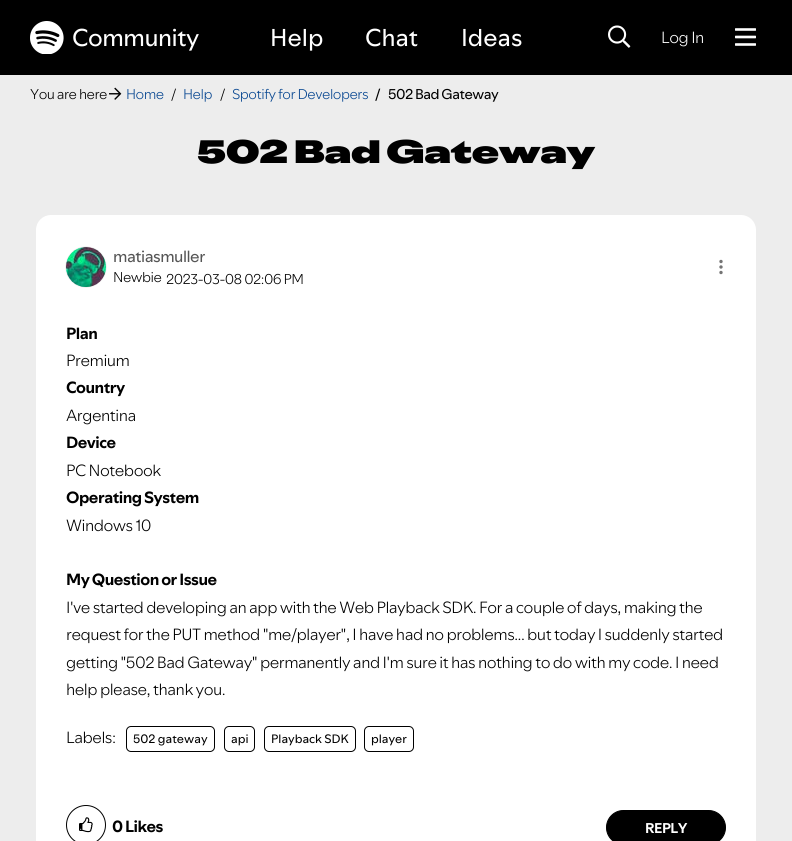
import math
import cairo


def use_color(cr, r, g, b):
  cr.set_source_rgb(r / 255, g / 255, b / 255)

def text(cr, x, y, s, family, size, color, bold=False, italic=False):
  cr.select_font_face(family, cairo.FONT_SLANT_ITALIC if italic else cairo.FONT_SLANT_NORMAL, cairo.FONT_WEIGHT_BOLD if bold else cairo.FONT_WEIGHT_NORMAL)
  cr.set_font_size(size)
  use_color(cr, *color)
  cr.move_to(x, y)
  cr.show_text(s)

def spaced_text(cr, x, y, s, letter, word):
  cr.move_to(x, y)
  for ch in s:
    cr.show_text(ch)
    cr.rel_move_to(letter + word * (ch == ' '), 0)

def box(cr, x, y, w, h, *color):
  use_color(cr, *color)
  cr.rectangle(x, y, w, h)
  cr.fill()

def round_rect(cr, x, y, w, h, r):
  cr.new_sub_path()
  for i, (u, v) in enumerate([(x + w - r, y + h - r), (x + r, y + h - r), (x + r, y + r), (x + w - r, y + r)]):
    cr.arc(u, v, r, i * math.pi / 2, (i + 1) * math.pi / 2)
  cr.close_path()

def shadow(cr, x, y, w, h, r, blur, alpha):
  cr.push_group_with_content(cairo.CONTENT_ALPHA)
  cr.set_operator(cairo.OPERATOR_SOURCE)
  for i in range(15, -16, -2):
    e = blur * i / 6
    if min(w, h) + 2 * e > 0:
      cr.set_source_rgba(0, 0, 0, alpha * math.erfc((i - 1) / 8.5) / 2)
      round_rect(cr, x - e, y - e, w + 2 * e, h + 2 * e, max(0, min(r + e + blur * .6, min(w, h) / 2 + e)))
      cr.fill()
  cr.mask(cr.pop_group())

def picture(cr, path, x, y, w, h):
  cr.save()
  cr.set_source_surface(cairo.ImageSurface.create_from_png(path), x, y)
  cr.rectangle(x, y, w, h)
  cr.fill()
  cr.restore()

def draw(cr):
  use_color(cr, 237, 237, 237)
  cr.paint()
  box(cr, 0, 0, 792, 75, 0, 0, 0)
  picture(cr, "img_01.png", 30, 21, 34, 33)
  picture(cr, "img_02.png", 608, 25, 23, 23)
  picture(cr, "img_03.png", 735, 28, 21, 18)
  picture(cr, "img_04.png", 109, 87, 13, 13)
  use_color(cr, 255, 255, 255)
  round_rect(cr, 36, 215, 720, 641, 15)
  cr.fill()
  use_color(cr, 196, 196, 196)
  shadow(cr, 66, 247, 40, 40, 20, 0.5, 1)
  picture(cr, "img_05.png", 66, 247, 40, 40)
  use_color(cr, 116, 116, 116)
  cr.arc(721, 261.5, 1.7, 0, 2 * math.pi)
  cr.fill()
  cr.arc(721, 267, 1.7, 0, 2 * math.pi)
  cr.fill()
  cr.arc(721, 272.5, 1.7, 0, 2 * math.pi)
  cr.fill()
  round_rect(cr, 126.5, 726.5, 88, 25, 4.5)
  use_color(cr, 0, 0, 0)
  cr.set_line_width(1)
  cr.stroke()
  round_rect(cr, 224.5, 726.5, 30, 25, 4.5)
  cr.stroke()
  round_rect(cr, 264.5, 726.5, 91, 25, 4.5)
  cr.stroke()
  round_rect(cr, 364.5, 726.5, 49, 25, 4.5)
  cr.stroke()
  cr.arc(86, 825, 19.5, 0, 2 * math.pi)
  cr.stroke()
  picture(cr, "img_06.png", 79, 817, 14, 16)
  round_rect(cr, 606.5, 810.5, 119, 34, 17)
  cr.fill_preserve()
  cr.stroke()
  cr.select_font_face("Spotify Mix")
  cr.set_font_size(24)
  use_color(cr, 255, 255, 255)
  spaced_text(cr, 72, 46, "Community", -0.5, 0)
  text(cr, 270, 46, "Help", "Spotify Mix", 24, (255, 255, 255))
  text(cr, 365, 46, "Chat", "Spotify Mix", 24, (255, 255, 255))
  text(cr, 461, 46, "Ideas", "Spotify Mix", 24, (255, 255, 255))
  cr.select_font_face("Spotify Mix Light")
  cr.set_font_size(16)
  spaced_text(cr, 661, 43, "Log In", -0.5, 0)
  cr.set_font_size(14)
  use_color(cr, 0, 0, 0)
  spaced_text(cr, 30, 99, "You are here", -0.5, 0)
  use_color(cr, 8, 71, 145)
  spaced_text(cr, 126, 99, "Home", -0.5, 0)
  use_color(cr, 0, 0, 0)
  spaced_text(cr, 171, 99, "/", -0.5, 0)
  use_color(cr, 8, 71, 145)
  spaced_text(cr, 183, 99, "Help", -0.5, 0)
  use_color(cr, 0, 0, 0)
  spaced_text(cr, 220, 99, "/", -0.5, 0)
  use_color(cr, 8, 71, 145)
  spaced_text(cr, 232, 99, "Spotify for Developers", -0.5, 0)
  cr.select_font_face("Spotify Mix")
  use_color(cr, 0, 0, 0)
  spaced_text(cr, 375, 99, "/", -0.5, 0)
  spaced_text(cr, 388, 99, "502 Bad Gateway", -0.5, 0)
  cr.select_font_face("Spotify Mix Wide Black")
  cr.set_font_size(32)
  spaced_text(cr, 197, 163, "502 Bad Gateway", -0.5, 0)
  cr.select_font_face("Spotify Mix")
  cr.set_font_size(16)
  use_color(cr, 85, 85, 85)
  spaced_text(cr, 113, 262, "matiasmuller", -0.5, 0)
  cr.select_font_face("Spotify Mix Light")
  cr.set_font_size(14)
  use_color(cr, 0, 0, 0)
  spaced_text(cr, 113, 282, "Newbie", -0.5, 0)
  spaced_text(cr, 166, 284, "2023-03-08 02:06 PM", -0.5, 0)
  cr.select_font_face("Spotify Mix", cairo.FONT_SLANT_NORMAL, cairo.FONT_WEIGHT_BOLD)
  cr.set_font_size(16)
  spaced_text(cr, 66, 339, "Plan", -0.5, 0)
  cr.select_font_face("Spotify Mix Light")
  spaced_text(cr, 66, 366, "Premium", -0.5, 0)
  cr.select_font_face("Spotify Mix", cairo.FONT_SLANT_NORMAL, cairo.FONT_WEIGHT_BOLD)
  spaced_text(cr, 66, 393, "Country", -0.5, 0)
  cr.select_font_face("Spotify Mix Light")
  spaced_text(cr, 66, 421, "Argentina", -0.5, 0)
  cr.select_font_face("Spotify Mix", cairo.FONT_SLANT_NORMAL, cairo.FONT_WEIGHT_BOLD)
  spaced_text(cr, 66, 448, "Device", -0.5, 0)
  cr.select_font_face("Spotify Mix Light")
  spaced_text(cr, 66, 476, "PC Notebook", -0.5, 0)
  cr.select_font_face("Spotify Mix", cairo.FONT_SLANT_NORMAL, cairo.FONT_WEIGHT_BOLD)
  spaced_text(cr, 66, 503, "Operating System", -0.5, 0)
  cr.select_font_face("Spotify Mix Light")
  spaced_text(cr, 66, 531, "Windows 10", -0.5, 0)
  cr.select_font_face("Spotify Mix", cairo.FONT_SLANT_NORMAL, cairo.FONT_WEIGHT_BOLD)
  spaced_text(cr, 66, 585, "My Question or Issue", -0.5, 0)
  cr.select_font_face("Spotify Mix Light")
  spaced_text(cr, 66, 613, "I've started developing an app with the Web Playback SDK. For a couple of days, making the", -0.5, 0)
  spaced_text(cr, 66, 640, "request for the PUT method \"me/player\", I have had no problems... but today I suddenly started", -0.5, 0)
  spaced_text(cr, 66, 668, "getting \"502 Bad Gateway\" permanently and I'm sure it has nothing to do with my code. I need", -0.5, 0)
  spaced_text(cr, 66, 695, "help please, thank you.", -0.5, 0)
  spaced_text(cr, 66, 743, "Labels:", -0.5, 0)
  text(cr, 133, 743, "502 gateway", "Spotify Mix", 12, (0, 0, 0))
  text(cr, 231, 743, "api", "Spotify Mix", 12, (0, 0, 0))
  text(cr, 271, 743, "Playback SDK", "Spotify Mix", 12, (0, 0, 0))
  text(cr, 371, 743, "player", "Spotify Mix", 12, (0, 0, 0))
  cr.select_font_face("Spotify Mix", cairo.FONT_SLANT_NORMAL, cairo.FONT_WEIGHT_BOLD)
  cr.set_font_size(16)
  spaced_text(cr, 112, 832, "0 Likes", -0.5, 0)
  cr.set_font_size(14)
  use_color(cr, 255, 255, 255)
  spaced_text(cr, 645, 833, "REPLY", -0.5, 0)


surface = cairo.ImageSurface(cairo.FORMAT_RGB24, 792, 841)
cr = cairo.Context(surface)
options = cairo.FontOptions()
options.set_hint_metrics(cairo.HINT_METRICS_OFF)
options.set_hint_style(cairo.HINT_STYLE_NONE)
cr.set_font_options(options)
cr.set_miter_limit(4)
draw(cr)
surface.write_to_png("out.png")
